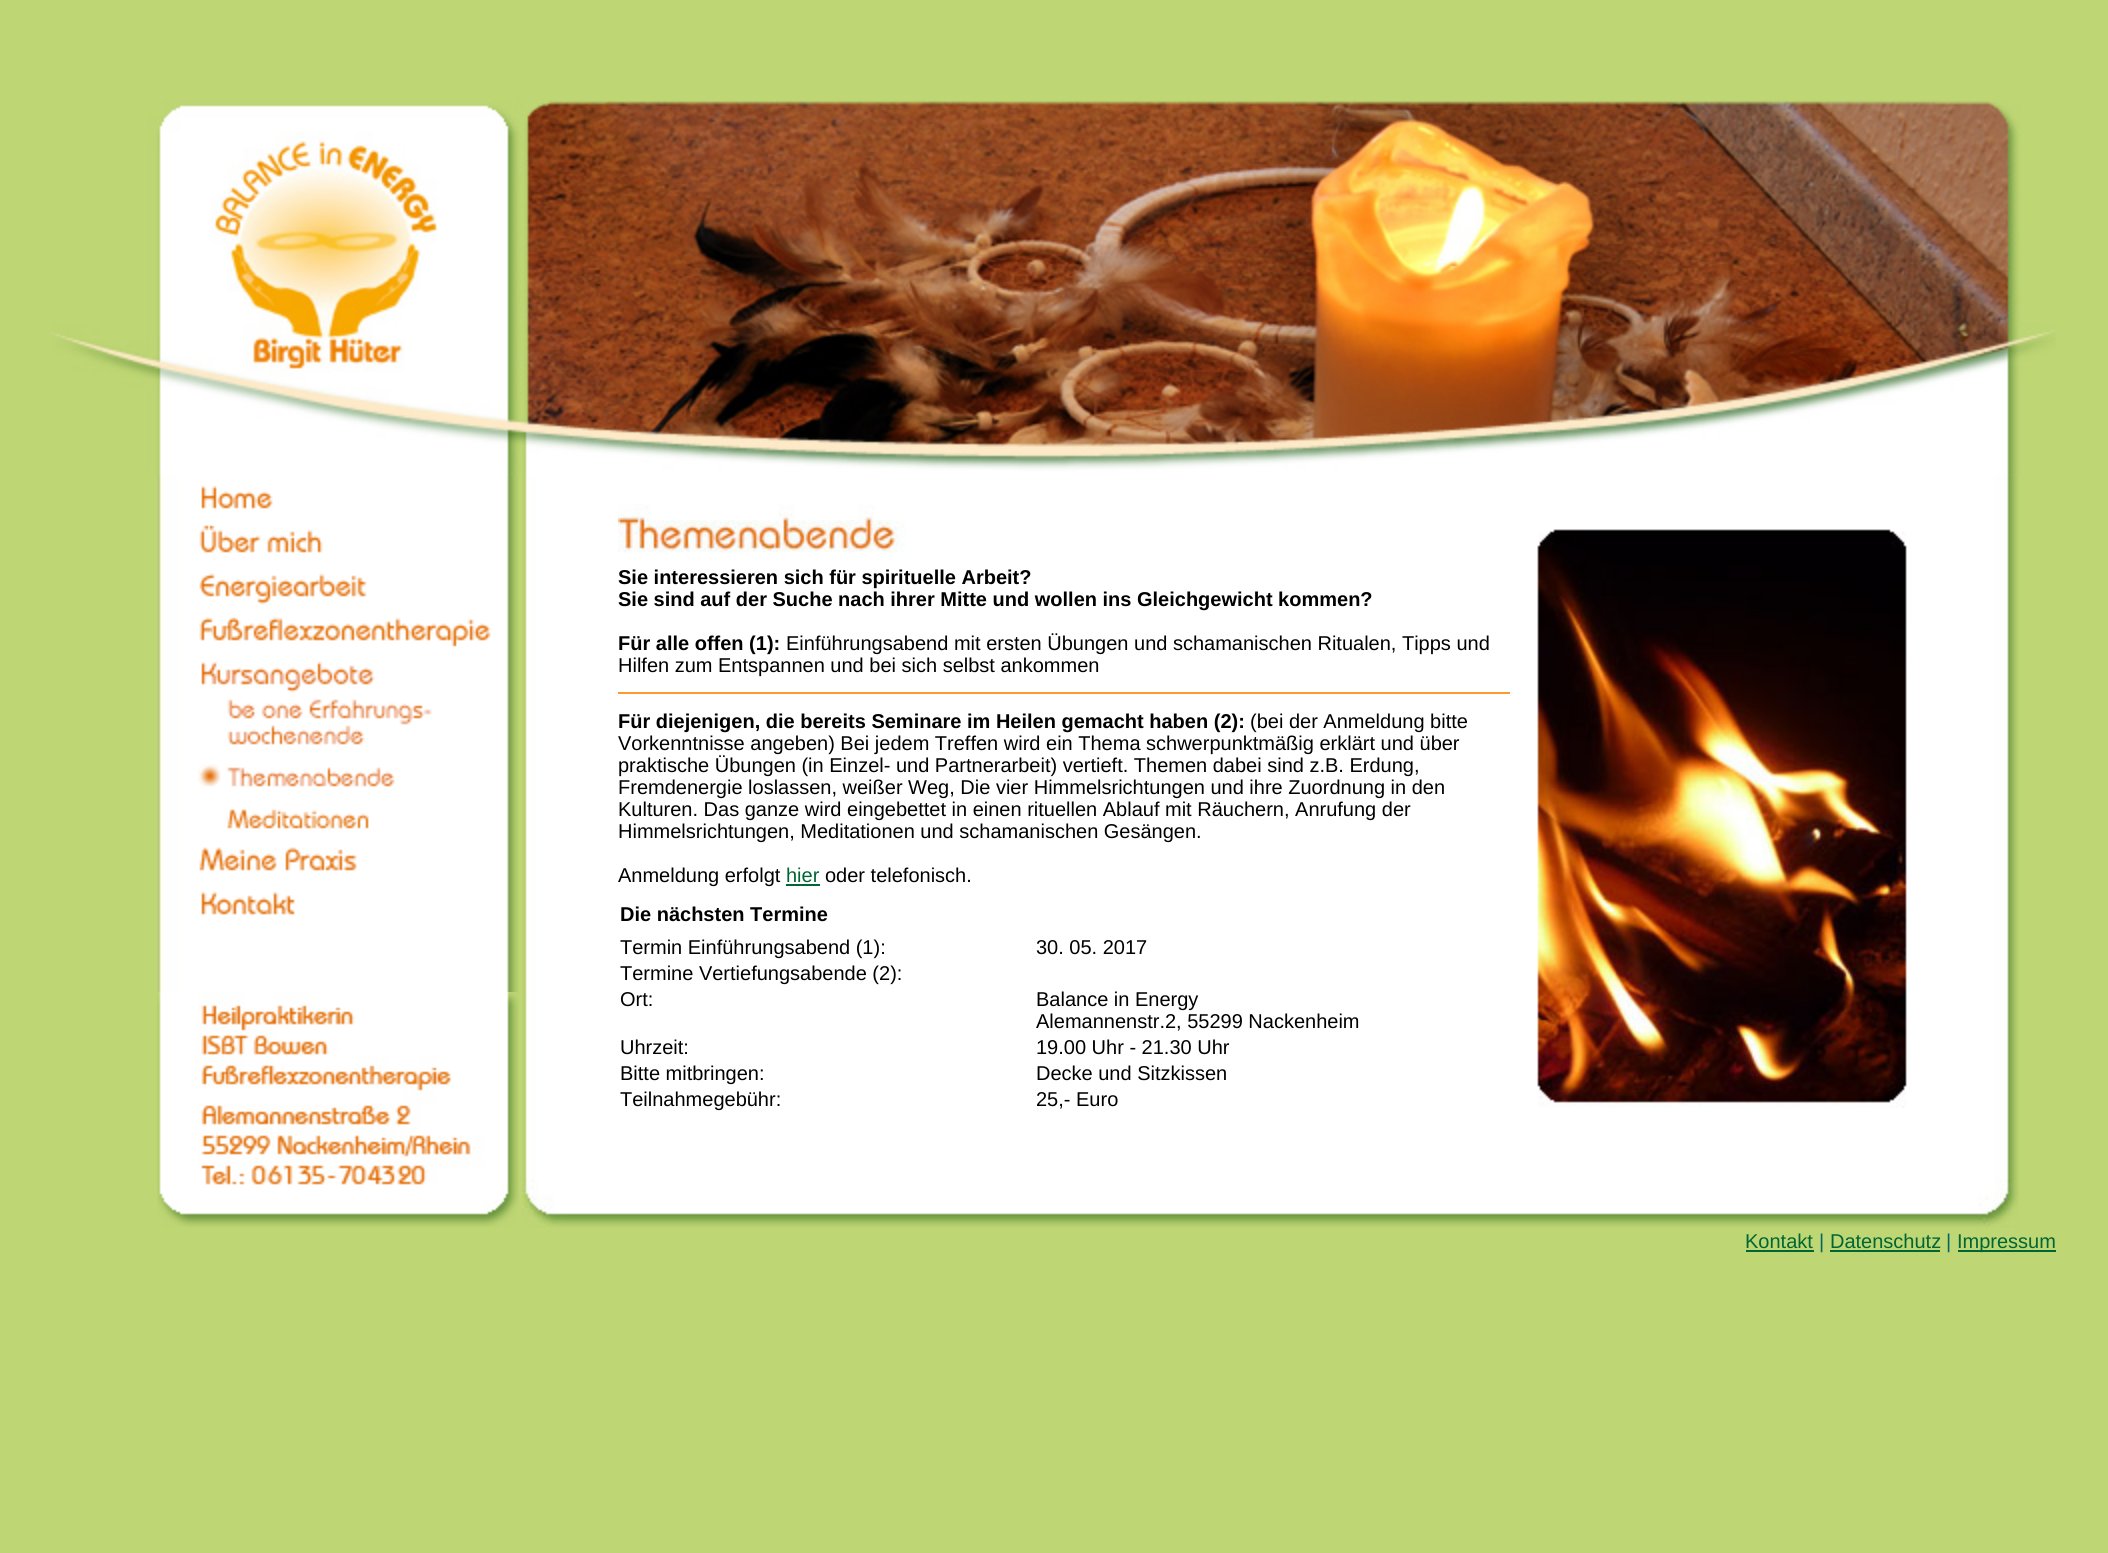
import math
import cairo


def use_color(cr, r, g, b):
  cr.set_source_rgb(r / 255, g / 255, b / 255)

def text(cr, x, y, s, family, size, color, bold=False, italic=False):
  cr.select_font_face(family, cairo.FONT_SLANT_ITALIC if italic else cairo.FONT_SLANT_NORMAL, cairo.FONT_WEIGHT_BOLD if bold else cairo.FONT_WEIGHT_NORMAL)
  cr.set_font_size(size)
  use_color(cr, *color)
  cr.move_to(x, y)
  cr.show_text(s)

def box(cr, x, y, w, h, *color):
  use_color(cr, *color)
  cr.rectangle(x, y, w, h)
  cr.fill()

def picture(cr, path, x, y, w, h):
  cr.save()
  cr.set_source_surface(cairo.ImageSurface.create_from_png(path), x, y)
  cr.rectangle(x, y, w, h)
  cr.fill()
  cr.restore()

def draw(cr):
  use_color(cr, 190, 214, 116)
  cr.paint()
  picture(cr, "img_01.png", 52, 100, 2004, 376)
  picture(cr, "img_02.png", 157, 992, 362, 235)
  picture(cr, "img_03.png", 157, 476, 362, 516)
  picture(cr, "img_04.png", 201, 485, 72, 24)
  picture(cr, "img_05.png", 199, 525, 124, 28)
  picture(cr, "img_06.png", 199, 573, 168, 32)
  picture(cr, "img_07.png", 199, 617, 292, 30)
  picture(cr, "img_08.png", 201, 661, 174, 32)
  picture(cr, "img_09.png", 227, 699, 206, 46)
  picture(cr, "img_10.png", 198, 764, 23, 23)
  picture(cr, "img_11.png", 227, 767, 168, 20)
  picture(cr, "img_12.png", 227, 809, 142, 20)
  picture(cr, "img_13.png", 199, 847, 158, 24)
  picture(cr, "img_14.png", 201, 891, 94, 24)
  picture(cr, "img_15.png", 522, 476, 1497, 752)
  picture(cr, "img_16.png", 618, 504, 288, 49)
  box(cr, 618, 692, 892, 2, 255, 153, 51)
  box(cr, 786, 884, 34, 2, 0, 102, 51)
  picture(cr, "img_17.png", 1537, 529, 370, 579)
  box(cr, 1746, 1250, 68, 2, 0, 102, 51)
  box(cr, 1830, 1250, 110, 2, 0, 102, 51)
  box(cr, 1958, 1250, 98, 2, 0, 102, 51)
  text(cr, 618, 584, "Sie interessieren sich für spirituelle Arbeit?", "Liberation Sans", 20, (0, 0, 0), bold=True)
  text(cr, 618, 606, "Sie sind auf der Suche nach ihrer Mitte und wollen ins Gleichgewicht kommen?", "Liberation Sans", 20, (0, 0, 0), bold=True)
  text(cr, 618, 650, "Für alle offen (1):", "Liberation Sans", 20, (0, 0, 0), bold=True)
  text(cr, 786, 650, "Einführungsabend mit ersten Übungen und schamanischen Ritualen, Tipps und", "Liberation Sans", 20, (0, 0, 0))
  text(cr, 618, 672, "Hilfen zum Entspannen und bei sich selbst ankommen", "Liberation Sans", 20, (0, 0, 0))
  text(cr, 618, 728, "Für diejenigen, die bereits Seminare im Heilen gemacht haben (2):", "Liberation Sans", 20, (0, 0, 0), bold=True)
  text(cr, 1250, 728, "(bei der Anmeldung bitte", "Liberation Sans", 20, (0, 0, 0))
  text(cr, 618, 750, "Vorkenntnisse angeben) Bei jedem Treffen wird ein Thema schwerpunktmäßig erklärt und über", "Liberation Sans", 20, (0, 0, 0))
  text(cr, 618, 772, "praktische Übungen (in Einzel- und Partnerarbeit) vertieft. Themen dabei sind z.B. Erdung,", "Liberation Sans", 20, (0, 0, 0))
  text(cr, 618, 794, "Fremdenergie loslassen, weißer Weg, Die vier Himmelsrichtungen und ihre Zuordnung in den", "Liberation Sans", 20, (0, 0, 0))
  text(cr, 618, 816, "Kulturen. Das ganze wird eingebettet in einen rituellen Ablauf mit Räuchern, Anrufung der", "Liberation Sans", 20, (0, 0, 0))
  text(cr, 618, 838, "Himmelsrichtungen, Meditationen und schamanischen Gesängen.", "Liberation Sans", 20, (0, 0, 0))
  text(cr, 618, 882, "Anmeldung erfolgt", "Liberation Sans", 20, (0, 0, 0))
  text(cr, 786, 882, "hier", "Liberation Sans", 20, (0, 102, 51))
  text(cr, 825, 882, "oder telefonisch.", "Liberation Sans", 20, (0, 0, 0))
  text(cr, 620, 921, "Die nächsten Termine", "Liberation Sans", 20, (0, 0, 0), bold=True)
  text(cr, 620, 954, "Termin Einführungsabend (1):", "Liberation Sans", 20, (0, 0, 0))
  text(cr, 1036, 954, "30. 05. 2017", "Liberation Sans", 20, (0, 0, 0))
  text(cr, 620, 980, "Termine Vertiefungsabende (2):", "Liberation Sans", 20, (0, 0, 0))
  text(cr, 620, 1006, "Ort:", "Liberation Sans", 20, (0, 0, 0))
  text(cr, 1036, 1006, "Balance in Energy", "Liberation Sans", 20, (0, 0, 0))
  text(cr, 1036, 1028, "Alemannenstr.2, 55299 Nackenheim", "Liberation Sans", 20, (0, 0, 0))
  text(cr, 620, 1054, "Uhrzeit:", "Liberation Sans", 20, (0, 0, 0))
  text(cr, 1036, 1054, "19.00 Uhr - 21.30 Uhr", "Liberation Sans", 20, (0, 0, 0))
  text(cr, 620, 1080, "Bitte mitbringen:", "Liberation Sans", 20, (0, 0, 0))
  text(cr, 1036, 1080, "Decke und Sitzkissen", "Liberation Sans", 20, (0, 0, 0))
  text(cr, 620, 1106, "Teilnahmegebühr:", "Liberation Sans", 20, (0, 0, 0))
  text(cr, 1036, 1106, "25,- Euro", "Liberation Sans", 20, (0, 0, 0))
  text(cr, 1745, 1248, "Kontakt", "Liberation Sans", 20, (0, 102, 51))
  text(cr, 1819, 1248, "|", "Liberation Sans", 20, (0, 102, 102))
  text(cr, 1830, 1248, "Datenschutz", "Liberation Sans", 20, (0, 102, 51))
  text(cr, 1946, 1248, "|", "Liberation Sans", 20, (0, 102, 102))
  text(cr, 1957, 1248, "Impressum", "Liberation Sans", 20, (0, 102, 51))


surface = cairo.ImageSurface(cairo.FORMAT_RGB24, 2108, 1553)
cr = cairo.Context(surface)
options = cairo.FontOptions()
options.set_hint_metrics(cairo.HINT_METRICS_OFF)
options.set_hint_style(cairo.HINT_STYLE_NONE)
cr.set_font_options(options)
cr.set_miter_limit(4)
draw(cr)
surface.write_to_png("out.png")
